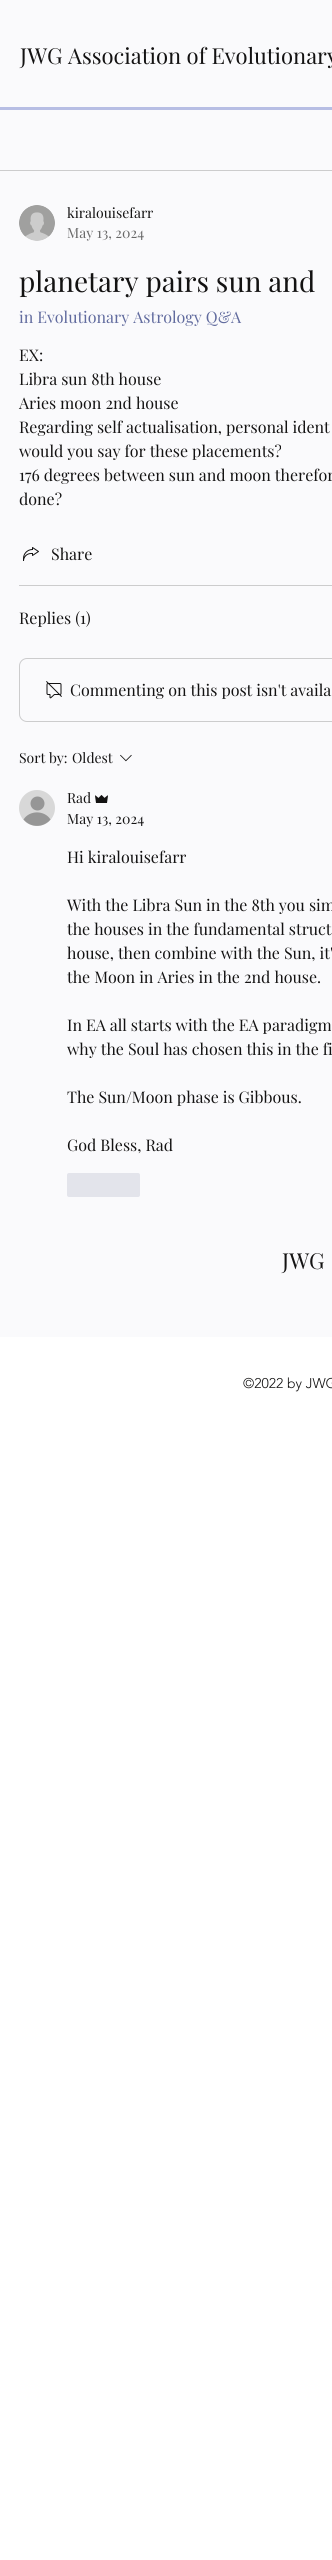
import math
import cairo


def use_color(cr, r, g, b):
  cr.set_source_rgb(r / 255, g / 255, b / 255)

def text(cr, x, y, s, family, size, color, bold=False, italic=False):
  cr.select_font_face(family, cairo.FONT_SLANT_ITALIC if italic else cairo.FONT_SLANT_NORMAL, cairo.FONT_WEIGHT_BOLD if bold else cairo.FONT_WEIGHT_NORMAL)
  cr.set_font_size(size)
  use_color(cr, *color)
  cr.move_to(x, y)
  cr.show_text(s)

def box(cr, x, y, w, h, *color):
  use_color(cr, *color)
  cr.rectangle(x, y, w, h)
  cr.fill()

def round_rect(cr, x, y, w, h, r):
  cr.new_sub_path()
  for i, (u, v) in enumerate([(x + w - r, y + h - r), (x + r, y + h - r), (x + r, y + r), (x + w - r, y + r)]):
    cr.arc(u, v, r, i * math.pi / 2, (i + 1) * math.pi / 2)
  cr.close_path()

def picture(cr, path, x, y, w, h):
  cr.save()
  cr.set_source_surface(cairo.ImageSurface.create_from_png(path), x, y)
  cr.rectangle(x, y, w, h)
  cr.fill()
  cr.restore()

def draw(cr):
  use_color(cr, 255, 255, 255)
  cr.paint()
  box(cr, 0, 0, 332, 107, 250, 250, 252)
  box(cr, 0, 107, 332, 3, 183, 190, 228)
  box(cr, 0, 110, 332, 1227, 250, 250, 252)
  box(cr, 0, 170, 332, 1, 204, 204, 205)
  picture(cr, "img_01.png", 19, 205, 36, 36)
  picture(cr, "img_02.png", 23, 547, 16, 14)
  box(cr, 19, 585, 313, 1, 204, 204, 205)
  round_rect(cr, 19.5, 658.5, 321, 63, 7.5)
  cr.set_line_width(1)
  cr.stroke()
  picture(cr, "img_03.png", 46, 681, 16, 18)
  picture(cr, "img_04.png", 120, 754, 12, 8)
  use_color(cr, 216, 216, 216)
  cr.arc(37, 808, 18, 0, 2 * math.pi)
  cr.fill()
  use_color(cr, 150, 150, 150)
  cr.arc(37.5, 803.5, 7, 0, 2 * math.pi)
  cr.fill()
  cr.new_path()
  cr.move_to(50.5, 819.5)
  cr.curve_to(43.5, 828, 30.5, 828, 23.5, 819.5)
  cr.curve_to(29.5, 810, 44.5, 810, 50.5, 819.5)
  cr.close_path()
  cr.fill()
  picture(cr, "img_05.png", 95, 795, 13, 8)
  use_color(cr, 227, 228, 235)
  round_rect(cr, 67, 1173, 73, 24, 2)
  cr.fill()
  text(cr, 20, 64, "JWG Association of Evolutionary", "Playfair Display", 22, (19, 18, 18))
  text(cr, 67, 218, "kiralouisefarr", "Playfair Display", 14, (19, 18, 18))
  text(cr, 67, 238, "May 13, 2024", "Playfair Display", 14, (102, 102, 102))
  text(cr, 19, 292, "planetary pairs sun and", "Playfair Display", 28, (19, 18, 18))
  text(cr, 19, 323, "in Evolutionary Astrology Q&A", "Playfair Display", 16, (97, 107, 158))
  text(cr, 19, 361, "EX:", "Playfair Display", 16, (19, 18, 18))
  text(cr, 19, 385, "Libra sun 8th house", "Playfair Display", 16, (19, 18, 18))
  text(cr, 19, 409, "Aries moon 2nd house", "Playfair Display", 16, (19, 18, 18))
  text(cr, 19, 433, "Regarding self actualisation, personal ident", "Playfair Display", 16, (19, 18, 18))
  text(cr, 19, 457, "would you say for these placements?", "Playfair Display", 16, (19, 18, 18))
  text(cr, 19, 481, "176 degrees between sun and moon therefor", "Playfair Display", 16, (19, 18, 18))
  text(cr, 19, 505, "done?", "Playfair Display", 16, (19, 18, 18))
  text(cr, 51, 560, "Share", "Playfair Display", 16, (19, 18, 18))
  text(cr, 19, 624, "Replies (1)", "Playfair Display", 16, (19, 18, 18))
  text(cr, 70, 696, "Commenting on this post isn't availa", "Playfair Display", 16, (19, 18, 18))
  text(cr, 19, 763, "Sort by:", "Playfair Display", 14, (19, 18, 18))
  text(cr, 72, 763, "Oldest", "Playfair Display", 14, (19, 18, 18))
  text(cr, 67, 803, "Rad", "Playfair Display", 14, (19, 18, 18))
  text(cr, 67, 824, "May 13, 2024", "Playfair Display", 14, (19, 18, 18))
  text(cr, 67, 863, "Hi kiralouisefarr", "Playfair Display", 16, (19, 18, 18))
  text(cr, 67, 911, "With the Libra Sun in the 8th you sim", "Playfair Display", 16, (19, 18, 18))
  text(cr, 67, 935, "the houses in the fundamental struct", "Playfair Display", 16, (19, 18, 18))
  text(cr, 67, 959, "house, then combine with the Sun, it'", "Playfair Display", 16, (19, 18, 18))
  text(cr, 67, 983, "the Moon in Aries in the 2nd house.", "Playfair Display", 16, (19, 18, 18))
  text(cr, 67, 1031, "In EA all starts with the EA paradigm", "Playfair Display", 16, (19, 18, 18))
  text(cr, 67, 1055, "why the Soul has chosen this in the fi", "Playfair Display", 16, (19, 18, 18))
  text(cr, 67, 1103, "The Sun/Moon phase is Gibbous.", "Playfair Display", 16, (19, 18, 18))
  text(cr, 67, 1151, "God Bless, Rad", "Playfair Display", 16, (19, 18, 18))
  text(cr, 282, 1269, "JWG", "Playfair Display", 22, (19, 18, 18))
  text(cr, 243, 1388, "©2022 by JWG", "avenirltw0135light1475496 Light", 14, (19, 18, 18))


surface = cairo.ImageSurface(cairo.FORMAT_RGB24, 332, 2560)
cr = cairo.Context(surface)
options = cairo.FontOptions()
options.set_hint_metrics(cairo.HINT_METRICS_OFF)
options.set_hint_style(cairo.HINT_STYLE_NONE)
cr.set_font_options(options)
cr.set_miter_limit(4)
draw(cr)
surface.write_to_png("out.png")
